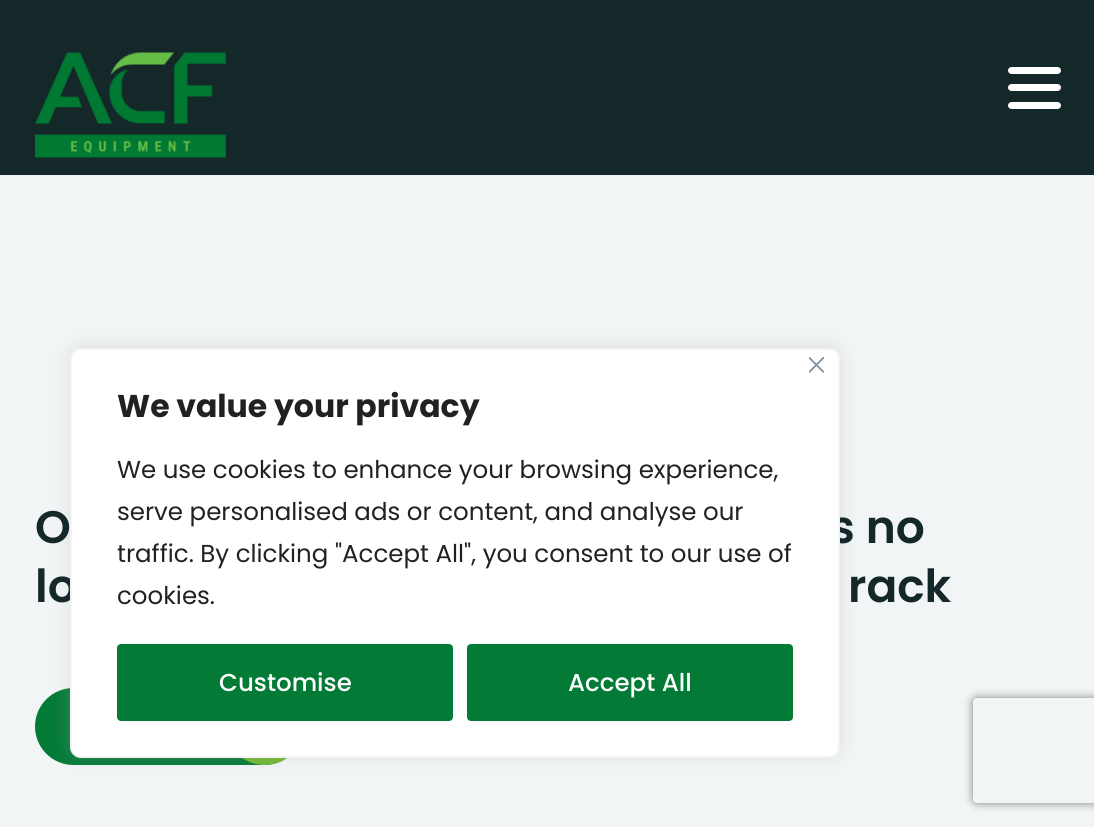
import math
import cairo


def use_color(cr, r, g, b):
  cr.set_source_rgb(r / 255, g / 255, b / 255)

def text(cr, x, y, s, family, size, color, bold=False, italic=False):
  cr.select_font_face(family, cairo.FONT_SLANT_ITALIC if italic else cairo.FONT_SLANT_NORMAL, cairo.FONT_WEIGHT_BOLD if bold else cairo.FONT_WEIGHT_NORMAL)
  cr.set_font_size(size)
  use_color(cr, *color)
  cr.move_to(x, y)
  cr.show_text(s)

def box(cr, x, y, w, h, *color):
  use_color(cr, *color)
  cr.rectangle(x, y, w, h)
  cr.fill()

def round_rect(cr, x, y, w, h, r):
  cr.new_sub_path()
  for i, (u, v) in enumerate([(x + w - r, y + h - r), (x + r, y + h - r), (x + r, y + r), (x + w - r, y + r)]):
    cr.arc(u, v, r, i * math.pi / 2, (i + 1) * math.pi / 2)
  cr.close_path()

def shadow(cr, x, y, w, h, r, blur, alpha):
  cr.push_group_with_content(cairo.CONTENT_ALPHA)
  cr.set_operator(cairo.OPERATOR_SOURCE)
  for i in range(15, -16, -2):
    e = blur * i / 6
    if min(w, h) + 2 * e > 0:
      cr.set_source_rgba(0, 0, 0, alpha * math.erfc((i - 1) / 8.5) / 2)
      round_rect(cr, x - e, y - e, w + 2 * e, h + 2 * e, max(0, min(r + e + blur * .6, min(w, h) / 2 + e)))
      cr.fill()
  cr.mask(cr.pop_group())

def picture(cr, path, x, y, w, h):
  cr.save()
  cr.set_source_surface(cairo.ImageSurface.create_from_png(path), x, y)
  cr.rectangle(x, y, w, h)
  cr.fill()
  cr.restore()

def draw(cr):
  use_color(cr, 241, 245, 245)
  cr.paint()
  box(cr, 0, 0, 1094, 175, 20, 39, 41)
  picture(cr, "img_01.png", 35, 52, 191, 106)
  use_color(cr, 255, 255, 255)
  round_rect(cr, 1008, 67, 53, 7, 3.5)
  cr.fill()
  round_rect(cr, 1008, 84, 53, 7, 3.5)
  cr.fill()
  round_rect(cr, 1008, 102, 53, 7, 3.5)
  cr.fill()
  use_color(cr, 3, 122, 54)
  round_rect(cr, 35, 688, 268, 77, 38.5)
  cr.fill()
  use_color(cr, 111, 183, 48)
  cr.arc(264.5, 726.5, 38.5, 0, 2 * math.pi)
  cr.fill()
  use_color(cr, 172, 171, 171)
  shadow(cr, 70, 347, 770, 409, 11, 9, 0.3)
  cr.save()
  cr.set_fill_rule(cairo.FILL_RULE_EVEN_ODD)
  cr.new_path()
  cr.move_to(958, 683)
  cr.line_to(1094, 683)
  cr.line_to(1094, 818)
  cr.line_to(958, 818)
  cr.close_path()
  cr.move_to(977, 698)
  cr.line_to(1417, 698)
  cr.curve_to(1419, 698, 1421, 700, 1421, 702)
  cr.line_to(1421, 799)
  cr.curve_to(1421, 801, 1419, 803, 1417, 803)
  cr.line_to(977, 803)
  cr.curve_to(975, 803, 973, 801, 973, 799)
  cr.line_to(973, 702)
  cr.curve_to(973, 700, 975, 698, 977, 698)
  cr.close_path()
  cr.clip()
  use_color(cr, 128, 128, 128)
  shadow(cr, 973, 698, 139, 105, 4, 4.5, 1)
  cr.restore()
  text(cr, 35, 543, "O", "Poppins SemiBold", 45.5, (20, 39, 41))
  text(cr, 830, 543, "s no", "Poppins SemiBold", 45.5, (20, 39, 41))
  text(cr, 35, 602, "lo", "Poppins SemiBold", 45.5, (20, 39, 41))
  use_color(cr, 255, 255, 255)
  round_rect(cr, 71, 349, 768, 408, 10)
  cr.fill_preserve()
  use_color(cr, 244, 244, 244)
  cr.stroke()
  picture(cr, "img_02.png", 809, 357, 15, 16)
  use_color(cr, 3, 122, 54)
  round_rect(cr, 469, 646, 322, 73, 2)
  cr.fill_preserve()
  cr.set_line_width(4)
  cr.stroke()
  text(cr, 568, 691, "Accept All", "Poppins Medium", 24.5, (255, 255, 255))
  use_color(cr, 3, 122, 54)
  round_rect(cr, 119, 646, 332, 73, 2)
  cr.fill_preserve()
  cr.stroke()
  text(cr, 219, 691, "Customise", "Poppins Medium", 24.5, (255, 255, 255))
  text(cr, 117, 604, "cookies.", "Poppins", 24.5, (33, 33, 33))
  text(cr, 117, 562, "traffic. By clicking \"Accept All\", you consent to our use of", "Poppins", 24.5, (33, 33, 33))
  text(cr, 117, 520, "serve personalised ads or content, and analyse our", "Poppins", 24.5, (33, 33, 33))
  text(cr, 117, 478, "We use cookies to enhance your browsing experience,", "Poppins", 24.5, (33, 33, 33))
  text(cr, 117, 417, "We value your privacy", "Poppins", 31.5, (33, 33, 33), bold=True)
  text(cr, 848, 602, "rack", "Poppins SemiBold", 45.5, (20, 39, 41))


surface = cairo.ImageSurface(cairo.FORMAT_RGB24, 1094, 827)
cr = cairo.Context(surface)
options = cairo.FontOptions()
options.set_hint_metrics(cairo.HINT_METRICS_OFF)
options.set_hint_style(cairo.HINT_STYLE_NONE)
cr.set_font_options(options)
cr.set_miter_limit(4)
draw(cr)
surface.write_to_png("out.png")
